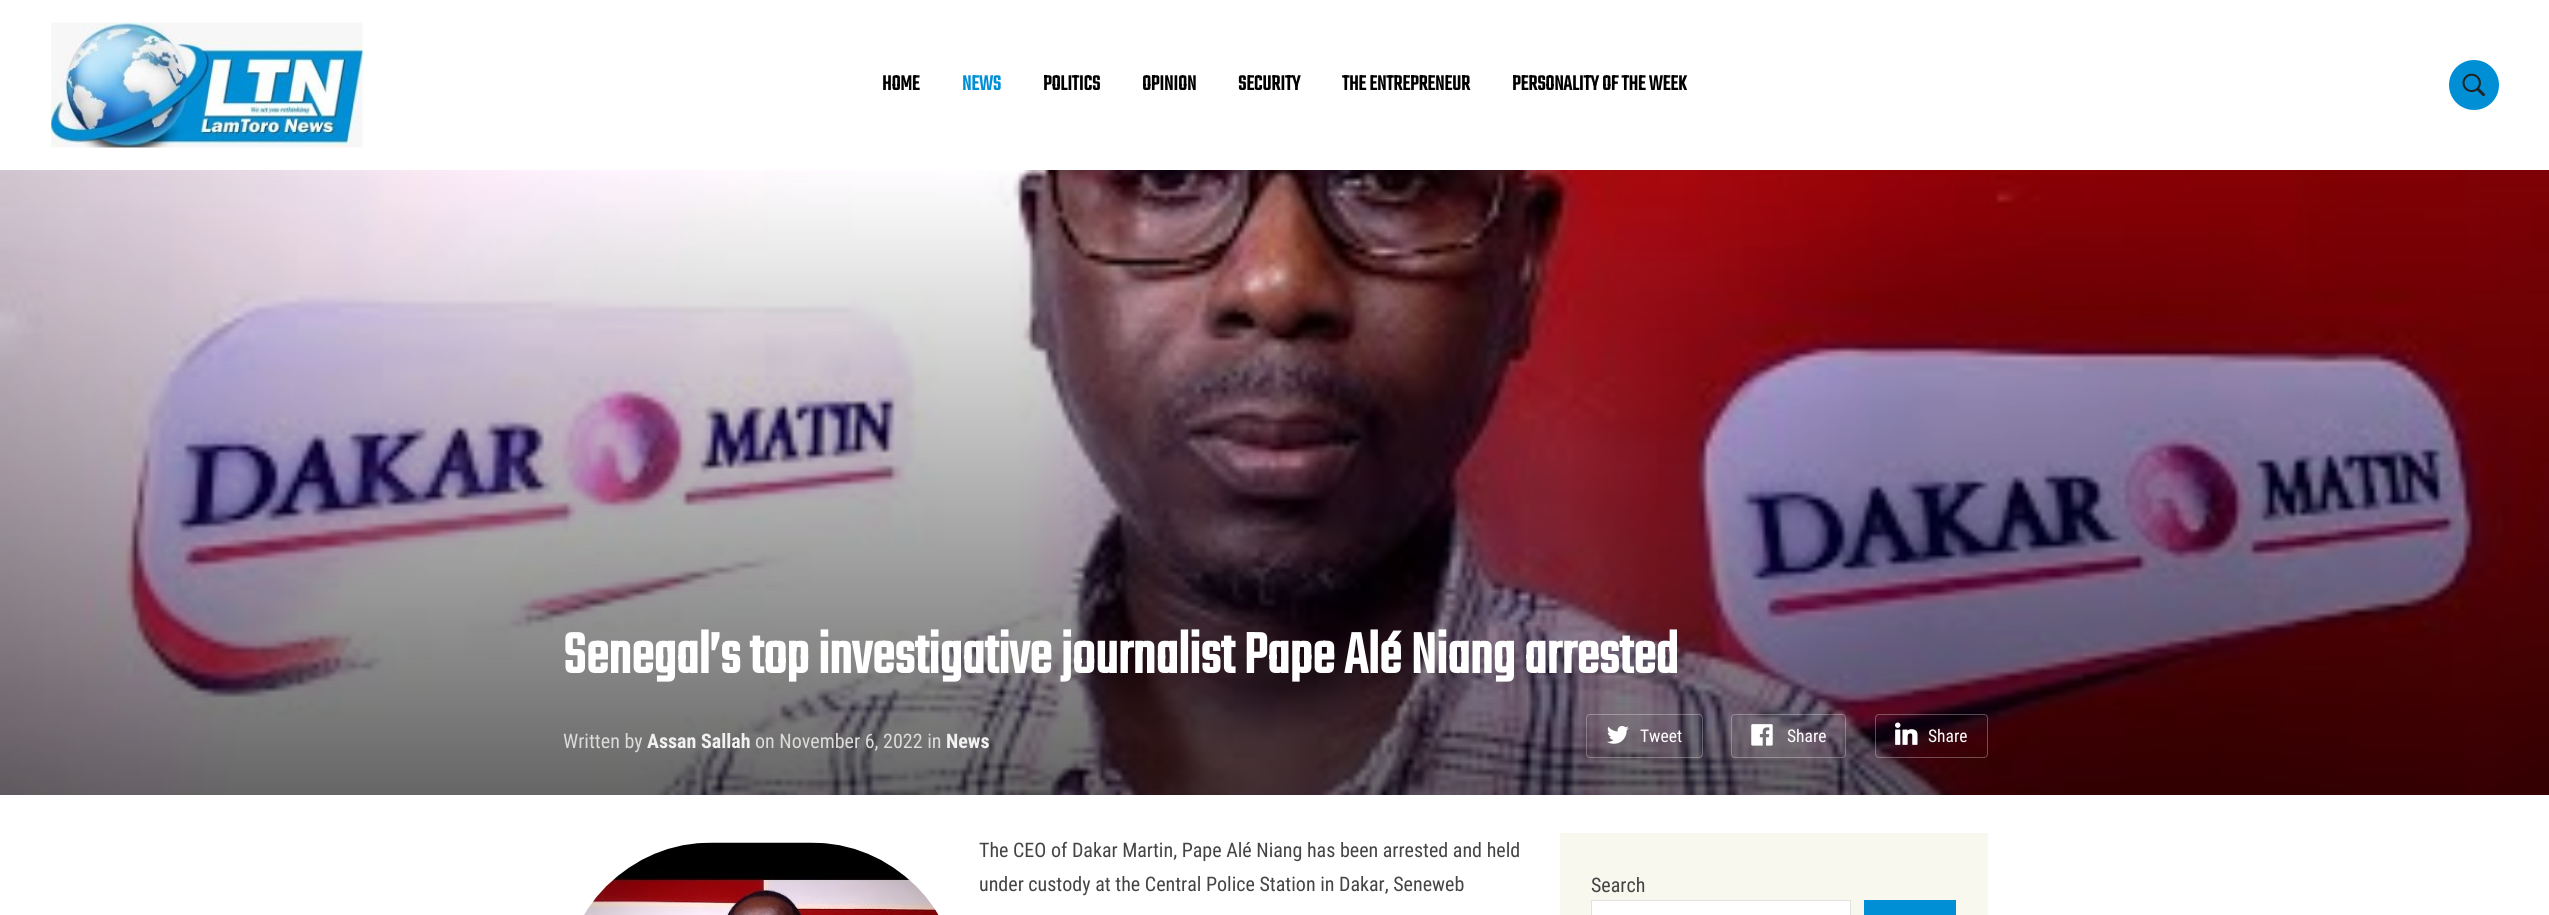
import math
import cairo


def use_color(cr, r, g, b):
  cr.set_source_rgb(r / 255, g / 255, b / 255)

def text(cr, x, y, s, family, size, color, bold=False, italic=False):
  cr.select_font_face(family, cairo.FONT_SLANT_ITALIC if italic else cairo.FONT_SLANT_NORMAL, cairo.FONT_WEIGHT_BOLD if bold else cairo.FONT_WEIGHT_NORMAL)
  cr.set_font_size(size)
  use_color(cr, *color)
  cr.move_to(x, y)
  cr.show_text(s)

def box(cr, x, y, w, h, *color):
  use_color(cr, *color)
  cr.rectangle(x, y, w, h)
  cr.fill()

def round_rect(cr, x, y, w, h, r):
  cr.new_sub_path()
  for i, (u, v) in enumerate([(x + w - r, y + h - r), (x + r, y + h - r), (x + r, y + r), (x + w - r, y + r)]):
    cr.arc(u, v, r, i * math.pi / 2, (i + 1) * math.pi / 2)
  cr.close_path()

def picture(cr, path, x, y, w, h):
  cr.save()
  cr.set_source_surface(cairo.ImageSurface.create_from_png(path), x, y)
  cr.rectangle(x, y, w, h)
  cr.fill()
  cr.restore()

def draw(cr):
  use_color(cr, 255, 255, 255)
  cr.paint()
  picture(cr, "img_01.png", 51, 22, 312, 126)
  use_color(cr, 0, 143, 213)
  cr.arc(2474, 85, 25, 0, 2 * math.pi)
  cr.fill()
  picture(cr, "img_02.png", 2462, 73, 23, 24)
  picture(cr, "img_03.png", 0, 170, 2549, 625)
  round_rect(cr, 1586.5, 714.5, 116, 43, 3.5)
  cr.set_source_rgba(1, 1, 1, 0.3)
  cr.set_line_width(1)
  cr.stroke()
  picture(cr, "img_04.png", 1607, 726, 22, 18)
  round_rect(cr, 1731.5, 714.5, 114, 43, 3.5)
  cr.stroke()
  picture(cr, "img_05.png", 1751, 724, 22, 22)
  round_rect(cr, 1875.5, 714.5, 112, 43, 3.5)
  cr.stroke()
  picture(cr, "img_06.png", 1895, 722, 23, 23)
  picture(cr, "img_07.png", 584, 842, 355, 73)
  box(cr, 1560, 833, 428, 82, 249, 248, 238)
  use_color(cr, 255, 255, 255)
  cr.rectangle(1591.5, 900.5, 259, 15)
  cr.fill_preserve()
  use_color(cr, 226, 226, 226)
  cr.stroke()
  box(cr, 1864, 900, 92, 15, 0, 143, 213)
  text(cr, 882, 90, "HOME", "Teko", 22.5, (0, 0, 0), bold=True)
  text(cr, 962, 90, "NEWS", "Teko", 22.5, (0, 143, 213), bold=True)
  text(cr, 1043, 90, "POLITICS", "Teko", 22.5, (0, 0, 0), bold=True)
  text(cr, 1142, 90, "OPINION", "Teko", 22.5, (0, 0, 0), bold=True)
  text(cr, 1238, 90, "SECURITY", "Teko", 22.5, (0, 0, 0), bold=True)
  text(cr, 1342, 90, "THE ENTREPRENEUR", "Teko", 22.5, (0, 0, 0), bold=True)
  text(cr, 1512, 90, "PERSONALITY OF THE WEEK", "Teko", 22.5, (0, 0, 0), bold=True)
  text(cr, 563, 673, "Senegal’s top investigative journalist Pape Alé Niang arrested", "Teko", 62.5, (255, 255, 255), bold=True)
  text(cr, 563, 748, "Written by", "Roboto Condensed", 20, (219, 219, 218))
  text(cr, 647, 748, "Assan Sallah", "Roboto Condensed", 20, (241, 241, 241), bold=True)
  text(cr, 755, 748, "on November 6, 2022 in", "Roboto Condensed", 20, (219, 219, 218))
  text(cr, 946, 748, "News", "Roboto Condensed", 20, (241, 241, 241), bold=True)
  text(cr, 1640, 742, "Tweet", "Roboto Condensed", 17.5, (255, 255, 255))
  text(cr, 1787, 742, "Share", "Roboto Condensed", 17.5, (255, 255, 255))
  text(cr, 1928, 742, "Share", "Roboto Condensed", 17.5, (255, 255, 255))
  text(cr, 979, 857, "The CEO of Dakar Martin, Pape Alé Niang has been arrested and held", "Roboto Condensed", 20, (68, 68, 68))
  text(cr, 979, 891, "under custody at the Central Police Station in Dakar, Seneweb", "Roboto Condensed", 20, (68, 68, 68))
  text(cr, 1591, 892, "Search", "Roboto Condensed", 20, (68, 68, 68))


surface = cairo.ImageSurface(cairo.FORMAT_RGB24, 2549, 915)
cr = cairo.Context(surface)
options = cairo.FontOptions()
options.set_hint_metrics(cairo.HINT_METRICS_OFF)
options.set_hint_style(cairo.HINT_STYLE_NONE)
cr.set_font_options(options)
cr.set_miter_limit(4)
draw(cr)
surface.write_to_png("out.png")
